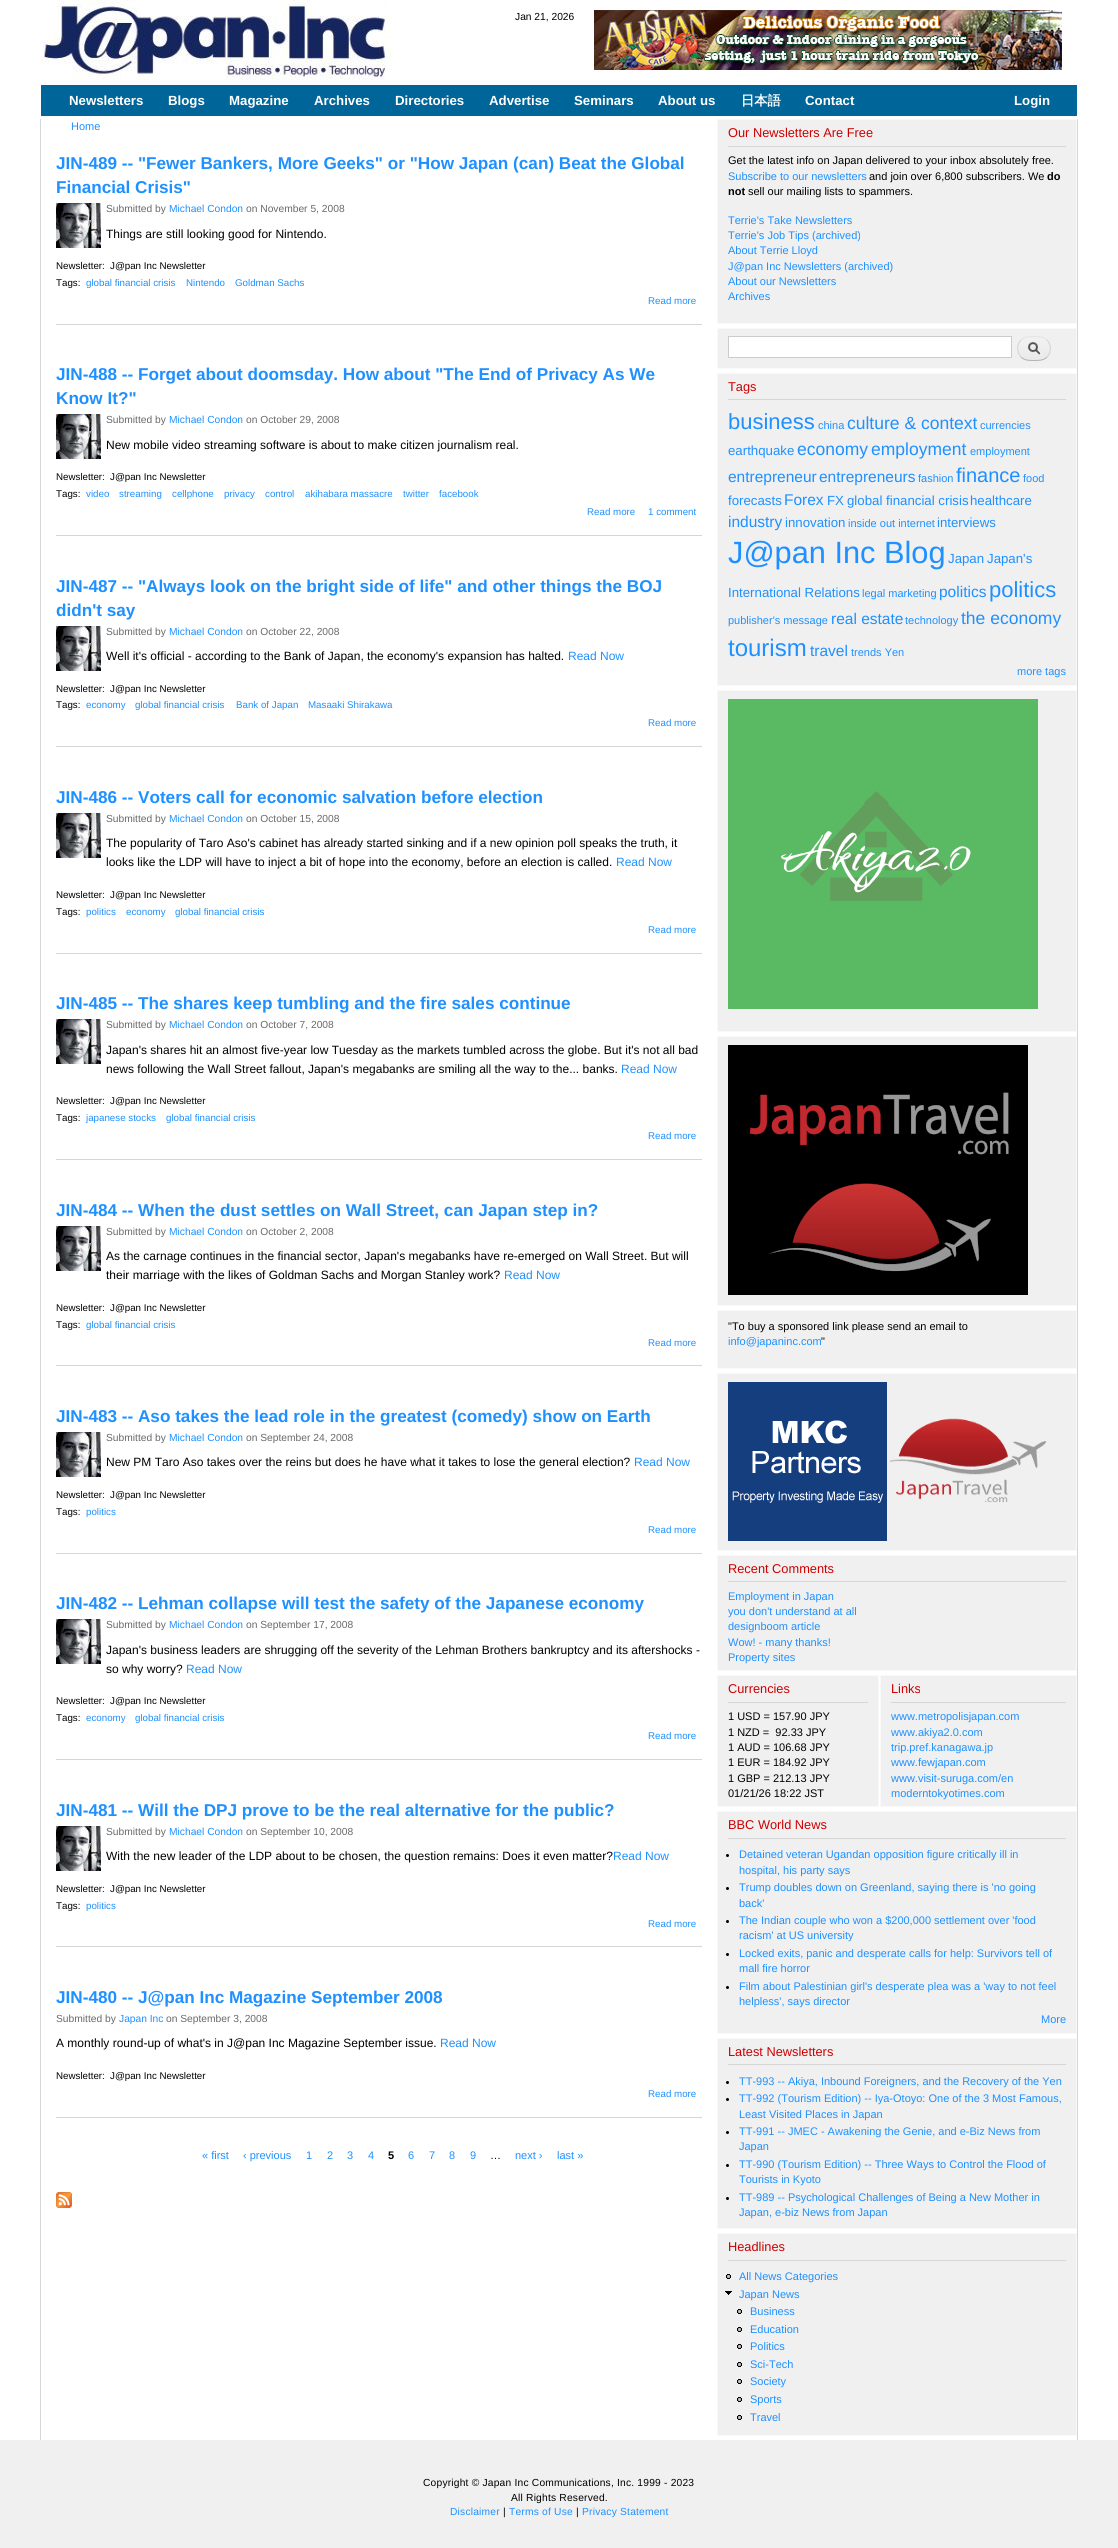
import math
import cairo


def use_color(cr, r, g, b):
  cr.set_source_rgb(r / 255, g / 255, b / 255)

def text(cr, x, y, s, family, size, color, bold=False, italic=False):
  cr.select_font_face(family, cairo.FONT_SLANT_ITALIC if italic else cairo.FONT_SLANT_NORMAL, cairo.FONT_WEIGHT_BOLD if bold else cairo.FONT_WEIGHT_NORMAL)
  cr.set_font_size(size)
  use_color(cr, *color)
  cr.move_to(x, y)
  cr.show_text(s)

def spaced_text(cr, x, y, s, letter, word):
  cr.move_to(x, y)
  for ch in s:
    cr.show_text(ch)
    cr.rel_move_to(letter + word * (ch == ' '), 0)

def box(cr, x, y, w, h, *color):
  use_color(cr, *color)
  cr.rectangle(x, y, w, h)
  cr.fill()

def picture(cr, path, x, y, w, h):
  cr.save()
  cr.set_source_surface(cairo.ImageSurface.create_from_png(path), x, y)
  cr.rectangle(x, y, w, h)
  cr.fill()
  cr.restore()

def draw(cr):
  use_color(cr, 255, 255, 255)
  cr.paint()
  picture(cr, "img_01.png", 41, 0, 350, 80)
  picture(cr, "img_02.png", 594, 10, 468, 60)
  box(cr, 41, 85, 1036, 31, 0, 102, 153)
  box(cr, 1077, 119, 1, 2321, 211, 215, 217)
  box(cr, 40, 119, 1, 2321, 211, 215, 217)
  box(cr, 56, 324, 646, 1, 211, 215, 217)
  picture(cr, "img_03.png", 56, 203, 45, 45)
  box(cr, 56, 535, 646, 1, 211, 215, 217)
  picture(cr, "img_03.png", 56, 414, 45, 45)
  box(cr, 56, 746, 646, 1, 211, 215, 217)
  picture(cr, "img_03.png", 56, 626, 45, 45)
  box(cr, 56, 953, 646, 1, 211, 215, 217)
  picture(cr, "img_03.png", 56, 813, 45, 45)
  box(cr, 56, 1159, 646, 1, 211, 215, 217)
  picture(cr, "img_03.png", 56, 1019, 45, 45)
  box(cr, 56, 1365, 646, 1, 211, 215, 217)
  picture(cr, "img_03.png", 56, 1226, 45, 45)
  box(cr, 56, 1553, 646, 1, 211, 215, 217)
  picture(cr, "img_03.png", 56, 1432, 45, 45)
  box(cr, 56, 1759, 646, 1, 211, 215, 217)
  picture(cr, "img_03.png", 56, 1619, 45, 45)
  box(cr, 56, 1946, 646, 1, 211, 215, 217)
  picture(cr, "img_03.png", 56, 1826, 45, 45)
  box(cr, 56, 2117, 646, 1, 211, 215, 217)
  picture(cr, "img_04.png", 56, 2192, 16, 16)
  use_color(cr, 240, 240, 240)
  cr.rectangle(717.5, 119.5, 359, 204)
  cr.fill_preserve()
  use_color(cr, 249, 249, 249)
  cr.set_line_width(1)
  cr.stroke()
  box(cr, 728, 146, 338, 1, 214, 214, 214)
  use_color(cr, 240, 240, 240)
  cr.rectangle(717.5, 328.5, 359, 40)
  cr.fill_preserve()
  use_color(cr, 249, 249, 249)
  cr.stroke()
  use_color(cr, 255, 255, 255)
  cr.rectangle(728.5, 336.5, 283, 21)
  cr.fill_preserve()
  use_color(cr, 204, 204, 204)
  cr.stroke()
  picture(cr, "img_05.png", 1018, 342, 32, 19)
  cr.new_path()
  cr.move_to(1021, 340)
  cr.curve_to(1024.5, 336.5, 1029, 336.5, 1034, 336.5)
  cr.curve_to(1039, 336.5, 1043.5, 336.5, 1047, 340)
  use_color(cr, 228, 228, 228)
  cr.stroke()
  cr.new_path()
  cr.move_to(1047, 340)
  cr.curve_to(1051.5, 344.5, 1051.5, 352.5, 1047, 357)
  use_color(cr, 210, 210, 210)
  cr.stroke()
  cr.new_path()
  cr.move_to(1047, 357)
  cr.curve_to(1043.5, 360.5, 1039, 360.5, 1034, 360.5)
  cr.curve_to(1029, 360.5, 1024.5, 360.5, 1021, 357)
  use_color(cr, 180, 180, 180)
  cr.stroke()
  cr.new_path()
  cr.move_to(1021, 357)
  cr.curve_to(1016.5, 352.5, 1016.5, 344.5, 1021, 340)
  use_color(cr, 210, 210, 210)
  cr.stroke()
  use_color(cr, 240, 240, 240)
  cr.rectangle(717.5, 373.5, 359, 312)
  cr.fill_preserve()
  use_color(cr, 249, 249, 249)
  cr.stroke()
  box(cr, 728, 399, 338, 1, 214, 214, 214)
  use_color(cr, 240, 240, 240)
  cr.rectangle(717.5, 690.5, 359, 341)
  cr.fill_preserve()
  use_color(cr, 249, 249, 249)
  cr.stroke()
  picture(cr, "img_06.png", 728, 699, 310, 310)
  use_color(cr, 240, 240, 240)
  cr.rectangle(717.5, 1036.5, 359, 269)
  cr.fill_preserve()
  use_color(cr, 249, 249, 249)
  cr.stroke()
  picture(cr, "img_07.png", 728, 1045, 300, 250)
  use_color(cr, 240, 240, 240)
  cr.rectangle(717.5, 1310.5, 359, 58)
  cr.fill_preserve()
  use_color(cr, 249, 249, 249)
  cr.stroke()
  use_color(cr, 240, 240, 240)
  cr.rectangle(717.5, 1373.5, 359, 177)
  cr.fill_preserve()
  use_color(cr, 249, 249, 249)
  cr.stroke()
  picture(cr, "img_08.png", 728, 1382, 159, 159)
  picture(cr, "img_09.png", 890, 1418, 157, 85)
  use_color(cr, 240, 240, 240)
  cr.rectangle(717.5, 1555.5, 359, 115)
  cr.fill_preserve()
  use_color(cr, 249, 249, 249)
  cr.stroke()
  box(cr, 728, 1581, 338, 1, 214, 214, 214)
  use_color(cr, 240, 240, 240)
  cr.rectangle(717.5, 1675.5, 161, 131)
  cr.fill_preserve()
  use_color(cr, 249, 249, 249)
  cr.stroke()
  box(cr, 728, 1702, 140, 1, 214, 214, 214)
  use_color(cr, 240, 240, 240)
  cr.rectangle(880.5, 1675.5, 196, 131)
  cr.fill_preserve()
  use_color(cr, 249, 249, 249)
  cr.stroke()
  box(cr, 891, 1702, 175, 1, 214, 214, 214)
  use_color(cr, 240, 240, 240)
  cr.rectangle(717.5, 1811.5, 359, 222)
  cr.fill_preserve()
  use_color(cr, 249, 249, 249)
  cr.stroke()
  box(cr, 728, 1838, 338, 1, 214, 214, 214)
  use_color(cr, 0, 0, 0)
  cr.arc(727.5, 1855.5, 1.5, 0, 2 * math.pi)
  cr.fill()
  cr.arc(727.5, 1888.5, 1.5, 0, 2 * math.pi)
  cr.fill()
  cr.arc(727.5, 1921.5, 1.5, 0, 2 * math.pi)
  cr.fill()
  cr.arc(727.5, 1954.5, 1.5, 0, 2 * math.pi)
  cr.fill()
  cr.arc(727.5, 1987.5, 1.5, 0, 2 * math.pi)
  cr.fill()
  use_color(cr, 240, 240, 240)
  cr.rectangle(717.5, 2038.5, 359, 190)
  cr.fill_preserve()
  use_color(cr, 249, 249, 249)
  cr.stroke()
  box(cr, 728, 2064, 338, 1, 214, 214, 214)
  use_color(cr, 0, 0, 0)
  cr.arc(727.5, 2082.5, 1.5, 0, 2 * math.pi)
  cr.fill()
  cr.arc(727.5, 2099.5, 1.5, 0, 2 * math.pi)
  cr.fill()
  cr.arc(727.5, 2132.5, 1.5, 0, 2 * math.pi)
  cr.fill()
  cr.arc(727.5, 2165.5, 1.5, 0, 2 * math.pi)
  cr.fill()
  cr.arc(727.5, 2198.5, 1.5, 0, 2 * math.pi)
  cr.fill()
  use_color(cr, 240, 240, 240)
  cr.rectangle(717.5, 2233.5, 359, 202)
  cr.fill_preserve()
  use_color(cr, 249, 249, 249)
  cr.stroke()
  box(cr, 728, 2260, 338, 1, 214, 214, 214)
  picture(cr, "img_10.png", 726, 2274, 5, 5)
  picture(cr, "img_11.png", 725, 2291, 7, 4)
  picture(cr, "img_10.png", 737, 2309, 5, 5)
  picture(cr, "img_10.png", 737, 2327, 5, 5)
  picture(cr, "img_10.png", 737, 2344, 5, 5)
  picture(cr, "img_10.png", 737, 2362, 5, 5)
  picture(cr, "img_10.png", 737, 2379, 5, 5)
  picture(cr, "img_10.png", 737, 2397, 5, 5)
  picture(cr, "img_10.png", 737, 2415, 5, 5)
  box(cr, 0, 2440, 1118, 108, 240, 240, 240)
  text(cr, 515, 20, "Jan 21, 2026", "Liberation Sans", 10.25, (0, 0, 0))
  text(cr, 69, 105, "Newsletters", "Liberation Sans", 13.25, (255, 255, 255), bold=True)
  text(cr, 168, 105, "Blogs", "Liberation Sans", 13.25, (255, 255, 255), bold=True)
  text(cr, 229, 105, "Magazine", "Liberation Sans", 13.25, (255, 255, 255), bold=True)
  text(cr, 314, 105, "Archives", "Liberation Sans", 13.25, (255, 255, 255), bold=True)
  text(cr, 395, 105, "Directories", "Liberation Sans", 13.25, (255, 255, 255), bold=True)
  text(cr, 489, 105, "Advertise", "Liberation Sans", 13.25, (255, 255, 255), bold=True)
  text(cr, 574, 105, "Seminars", "Liberation Sans", 13.25, (255, 255, 255), bold=True)
  text(cr, 658, 105, "About us", "Liberation Sans", 13.25, (255, 255, 255), bold=True)
  text(cr, 741, 105, "日本語", "WenQuanYi Zen Hei", 13.25, (255, 255, 255), bold=True)
  text(cr, 805, 105, "Contact", "Liberation Sans", 13.25, (255, 255, 255), bold=True)
  text(cr, 1014, 105, "Login", "Liberation Sans", 13.25, (255, 255, 255), bold=True)
  text(cr, 71, 130, "Home", "Liberation Sans", 11, (30, 144, 255))
  text(cr, 56, 169, "JIN-489 -- \"Fewer Bankers, More Geeks\" or \"How Japan (can) Beat the Global", "Liberation Sans", 17.15, (30, 144, 255), bold=True)
  text(cr, 56, 193, "Financial Crisis\"", "Liberation Sans", 17.15, (30, 144, 255), bold=True)
  text(cr, 106, 212, "Submitted by", "Liberation Sans", 10.25, (104, 105, 107))
  text(cr, 169, 212, "Michael Condon", "Liberation Sans", 10.25, (30, 144, 255))
  text(cr, 246, 212, "on November 5, 2008", "Liberation Sans", 10.25, (104, 105, 107))
  text(cr, 106, 238, "Things are still looking good for Nintendo.", "Liberation Sans", 12, (0, 0, 0))
  text(cr, 56, 269, "Newsletter:", "Liberation Sans", 9.75, (0, 0, 0))
  text(cr, 110, 269, "J@pan Inc Newsletter", "Liberation Sans", 9.75, (0, 0, 0))
  text(cr, 56, 286, "Tags:", "Liberation Sans", 9.75, (0, 0, 0))
  text(cr, 86, 286, "global financial crisis", "Liberation Sans", 9.75, (30, 144, 255))
  text(cr, 186, 286, "Nintendo", "Liberation Sans", 9.75, (30, 144, 255))
  text(cr, 235, 286, "Goldman Sachs", "Liberation Sans", 9.75, (30, 144, 255))
  text(cr, 648, 304, "Read more", "Liberation Sans", 9.75, (30, 144, 255))
  text(cr, 56, 380, "JIN-488 -- Forget about doomsday. How about \"The End of Privacy As We", "Liberation Sans", 17.15, (30, 144, 255), bold=True)
  text(cr, 56, 404, "Know It?\"", "Liberation Sans", 17.15, (30, 144, 255), bold=True)
  text(cr, 106, 423, "Submitted by", "Liberation Sans", 10.25, (104, 105, 107))
  text(cr, 169, 423, "Michael Condon", "Liberation Sans", 10.25, (30, 144, 255))
  text(cr, 246, 423, "on October 29, 2008", "Liberation Sans", 10.25, (104, 105, 107))
  text(cr, 106, 449, "New mobile video streaming software is about to make citizen journalism real.", "Liberation Sans", 12, (0, 0, 0))
  text(cr, 56, 480, "Newsletter:", "Liberation Sans", 9.75, (0, 0, 0))
  text(cr, 110, 480, "J@pan Inc Newsletter", "Liberation Sans", 9.75, (0, 0, 0))
  text(cr, 56, 497, "Tags:", "Liberation Sans", 9.75, (0, 0, 0))
  text(cr, 86, 497, "video", "Liberation Sans", 9.75, (30, 144, 255))
  text(cr, 119, 497, "streaming", "Liberation Sans", 9.75, (30, 144, 255))
  text(cr, 172, 497, "cellphone", "Liberation Sans", 9.75, (30, 144, 255))
  text(cr, 224, 497, "privacy", "Liberation Sans", 9.75, (30, 144, 255))
  text(cr, 265, 497, "control", "Liberation Sans", 9.75, (30, 144, 255))
  text(cr, 305, 497, "akihabara massacre", "Liberation Sans", 9.75, (30, 144, 255))
  text(cr, 403, 497, "twitter", "Liberation Sans", 9.75, (30, 144, 255))
  text(cr, 439, 497, "facebook", "Liberation Sans", 9.75, (30, 144, 255))
  text(cr, 587, 515, "Read more", "Liberation Sans", 9.75, (30, 144, 255))
  text(cr, 648, 515, "1 comment", "Liberation Sans", 9.75, (30, 144, 255))
  text(cr, 56, 592, "JIN-487 -- \"Always look on the bright side of life\" and other things the BOJ", "Liberation Sans", 17.15, (30, 144, 255), bold=True)
  text(cr, 56, 616, "didn't say", "Liberation Sans", 17.15, (30, 144, 255), bold=True)
  text(cr, 106, 635, "Submitted by", "Liberation Sans", 10.25, (104, 105, 107))
  text(cr, 169, 635, "Michael Condon", "Liberation Sans", 10.25, (30, 144, 255))
  text(cr, 246, 635, "on October 22, 2008", "Liberation Sans", 10.25, (104, 105, 107))
  text(cr, 106, 660, "Well it's official - according to the Bank of Japan, the economy's expansion has halted.", "Liberation Sans", 12, (0, 0, 0))
  text(cr, 568, 660, "Read Now", "Liberation Sans", 12, (30, 144, 255))
  text(cr, 56, 692, "Newsletter:", "Liberation Sans", 9.75, (0, 0, 0))
  text(cr, 110, 692, "J@pan Inc Newsletter", "Liberation Sans", 9.75, (0, 0, 0))
  text(cr, 56, 708, "Tags:", "Liberation Sans", 9.75, (0, 0, 0))
  text(cr, 86, 708, "economy", "Liberation Sans", 9.75, (30, 144, 255))
  text(cr, 135, 708, "global financial crisis", "Liberation Sans", 9.75, (30, 144, 255))
  text(cr, 236, 708, "Bank of Japan", "Liberation Sans", 9.75, (30, 144, 255))
  text(cr, 308, 708, "Masaaki Shirakawa", "Liberation Sans", 9.75, (30, 144, 255))
  text(cr, 648, 726, "Read more", "Liberation Sans", 9.75, (30, 144, 255))
  text(cr, 56, 803, "JIN-486 -- Voters call for economic salvation before election", "Liberation Sans", 17.15, (30, 144, 255), bold=True)
  text(cr, 106, 822, "Submitted by", "Liberation Sans", 10.25, (104, 105, 107))
  text(cr, 169, 822, "Michael Condon", "Liberation Sans", 10.25, (30, 144, 255))
  text(cr, 246, 822, "on October 15, 2008", "Liberation Sans", 10.25, (104, 105, 107))
  text(cr, 106, 847, "The popularity of Taro Aso's cabinet has already started sinking and if a new opinion poll speaks the truth, it", "Liberation Sans", 12, (0, 0, 0))
  text(cr, 106, 866, "looks like the LDP will have to inject a bit of hope into the economy, before an election is called.", "Liberation Sans", 12, (0, 0, 0))
  text(cr, 616, 866, "Read Now", "Liberation Sans", 12, (30, 144, 255))
  text(cr, 56, 898, "Newsletter:", "Liberation Sans", 9.75, (0, 0, 0))
  text(cr, 110, 898, "J@pan Inc Newsletter", "Liberation Sans", 9.75, (0, 0, 0))
  text(cr, 56, 915, "Tags:", "Liberation Sans", 9.75, (0, 0, 0))
  text(cr, 86, 915, "politics", "Liberation Sans", 9.75, (30, 144, 255))
  text(cr, 126, 915, "economy", "Liberation Sans", 9.75, (30, 144, 255))
  text(cr, 175, 915, "global financial crisis", "Liberation Sans", 9.75, (30, 144, 255))
  text(cr, 648, 933, "Read more", "Liberation Sans", 9.75, (30, 144, 255))
  text(cr, 56, 1009, "JIN-485 -- The shares keep tumbling and the fire sales continue", "Liberation Sans", 17.15, (30, 144, 255), bold=True)
  text(cr, 106, 1028, "Submitted by", "Liberation Sans", 10.25, (104, 105, 107))
  text(cr, 169, 1028, "Michael Condon", "Liberation Sans", 10.25, (30, 144, 255))
  text(cr, 246, 1028, "on October 7, 2008", "Liberation Sans", 10.25, (104, 105, 107))
  text(cr, 106, 1054, "Japan's shares hit an almost five-year low Tuesday as the markets tumbled across the globe. But it's not all bad", "Liberation Sans", 12, (0, 0, 0))
  text(cr, 106, 1073, "news following the Wall Street fallout, Japan's megabanks are smiling all the way to the... banks.", "Liberation Sans", 12, (0, 0, 0))
  text(cr, 621, 1073, "Read Now", "Liberation Sans", 12, (30, 144, 255))
  text(cr, 56, 1104, "Newsletter:", "Liberation Sans", 9.75, (0, 0, 0))
  text(cr, 110, 1104, "J@pan Inc Newsletter", "Liberation Sans", 9.75, (0, 0, 0))
  text(cr, 56, 1121, "Tags:", "Liberation Sans", 9.75, (0, 0, 0))
  text(cr, 86, 1121, "japanese stocks", "Liberation Sans", 9.75, (30, 144, 255))
  text(cr, 166, 1121, "global financial crisis", "Liberation Sans", 9.75, (30, 144, 255))
  text(cr, 648, 1139, "Read more", "Liberation Sans", 9.75, (30, 144, 255))
  text(cr, 56, 1216, "JIN-484 -- When the dust settles on Wall Street, can Japan step in?", "Liberation Sans", 17.15, (30, 144, 255), bold=True)
  text(cr, 106, 1235, "Submitted by", "Liberation Sans", 10.25, (104, 105, 107))
  text(cr, 169, 1235, "Michael Condon", "Liberation Sans", 10.25, (30, 144, 255))
  text(cr, 246, 1235, "on October 2, 2008", "Liberation Sans", 10.25, (104, 105, 107))
  text(cr, 106, 1260, "As the carnage continues in the financial sector, Japan's megabanks have re-emerged on Wall Street. But will", "Liberation Sans", 12, (0, 0, 0))
  text(cr, 106, 1279, "their marriage with the likes of Goldman Sachs and Morgan Stanley work?", "Liberation Sans", 12, (0, 0, 0))
  text(cr, 504, 1279, "Read Now", "Liberation Sans", 12, (30, 144, 255))
  text(cr, 56, 1311, "Newsletter:", "Liberation Sans", 9.75, (0, 0, 0))
  text(cr, 110, 1311, "J@pan Inc Newsletter", "Liberation Sans", 9.75, (0, 0, 0))
  text(cr, 56, 1328, "Tags:", "Liberation Sans", 9.75, (0, 0, 0))
  text(cr, 86, 1328, "global financial crisis", "Liberation Sans", 9.75, (30, 144, 255))
  text(cr, 648, 1346, "Read more", "Liberation Sans", 9.75, (30, 144, 255))
  text(cr, 56, 1422, "JIN-483 -- Aso takes the lead role in the greatest (comedy) show on Earth", "Liberation Sans", 17.15, (30, 144, 255), bold=True)
  text(cr, 106, 1441, "Submitted by", "Liberation Sans", 10.25, (104, 105, 107))
  text(cr, 169, 1441, "Michael Condon", "Liberation Sans", 10.25, (30, 144, 255))
  text(cr, 246, 1441, "on September 24, 2008", "Liberation Sans", 10.25, (104, 105, 107))
  text(cr, 106, 1466, "New PM Taro Aso takes over the reins but does he have what it takes to lose the general election?", "Liberation Sans", 12, (0, 0, 0))
  text(cr, 634, 1466, "Read Now", "Liberation Sans", 12, (30, 144, 255))
  text(cr, 56, 1498, "Newsletter:", "Liberation Sans", 9.75, (0, 0, 0))
  text(cr, 110, 1498, "J@pan Inc Newsletter", "Liberation Sans", 9.75, (0, 0, 0))
  text(cr, 56, 1515, "Tags:", "Liberation Sans", 9.75, (0, 0, 0))
  text(cr, 86, 1515, "politics", "Liberation Sans", 9.75, (30, 144, 255))
  text(cr, 648, 1533, "Read more", "Liberation Sans", 9.75, (30, 144, 255))
  text(cr, 56, 1609, "JIN-482 -- Lehman collapse will test the safety of the Japanese economy", "Liberation Sans", 17.15, (30, 144, 255), bold=True)
  text(cr, 106, 1628, "Submitted by", "Liberation Sans", 10.25, (104, 105, 107))
  text(cr, 169, 1628, "Michael Condon", "Liberation Sans", 10.25, (30, 144, 255))
  text(cr, 246, 1628, "on September 17, 2008", "Liberation Sans", 10.25, (104, 105, 107))
  text(cr, 106, 1654, "Japan's business leaders are shrugging off the severity of the Lehman Brothers bankruptcy and its aftershocks -", "Liberation Sans", 12, (0, 0, 0))
  text(cr, 106, 1673, "so why worry?", "Liberation Sans", 12, (0, 0, 0))
  text(cr, 186, 1673, "Read Now", "Liberation Sans", 12, (30, 144, 255))
  text(cr, 56, 1704, "Newsletter:", "Liberation Sans", 9.75, (0, 0, 0))
  text(cr, 110, 1704, "J@pan Inc Newsletter", "Liberation Sans", 9.75, (0, 0, 0))
  text(cr, 56, 1721, "Tags:", "Liberation Sans", 9.75, (0, 0, 0))
  text(cr, 86, 1721, "economy", "Liberation Sans", 9.75, (30, 144, 255))
  text(cr, 135, 1721, "global financial crisis", "Liberation Sans", 9.75, (30, 144, 255))
  text(cr, 648, 1739, "Read more", "Liberation Sans", 9.75, (30, 144, 255))
  text(cr, 56, 1816, "JIN-481 -- Will the DPJ prove to be the real alternative for the public?", "Liberation Sans", 17.15, (30, 144, 255), bold=True)
  text(cr, 106, 1835, "Submitted by", "Liberation Sans", 10.25, (104, 105, 107))
  text(cr, 169, 1835, "Michael Condon", "Liberation Sans", 10.25, (30, 144, 255))
  text(cr, 246, 1835, "on September 10, 2008", "Liberation Sans", 10.25, (104, 105, 107))
  text(cr, 106, 1860, "With the new leader of the LDP about to be chosen, the question remains: Does it even matter?", "Liberation Sans", 12, (0, 0, 0))
  text(cr, 613, 1860, "Read Now", "Liberation Sans", 12, (30, 144, 255))
  text(cr, 56, 1892, "Newsletter:", "Liberation Sans", 9.75, (0, 0, 0))
  text(cr, 110, 1892, "J@pan Inc Newsletter", "Liberation Sans", 9.75, (0, 0, 0))
  text(cr, 56, 1909, "Tags:", "Liberation Sans", 9.75, (0, 0, 0))
  text(cr, 86, 1909, "politics", "Liberation Sans", 9.75, (30, 144, 255))
  text(cr, 648, 1927, "Read more", "Liberation Sans", 9.75, (30, 144, 255))
  text(cr, 56, 2003, "JIN-480 -- J@pan Inc Magazine September 2008", "Liberation Sans", 17.15, (30, 144, 255), bold=True)
  text(cr, 56, 2022, "Submitted by", "Liberation Sans", 10.25, (104, 105, 107))
  text(cr, 119, 2022, "Japan Inc", "Liberation Sans", 10.25, (30, 144, 255))
  text(cr, 166, 2022, "on September 3, 2008", "Liberation Sans", 10.25, (104, 105, 107))
  text(cr, 56, 2047, "A monthly round-up of what's in J@pan Inc Magazine September issue.", "Liberation Sans", 12, (0, 0, 0))
  text(cr, 440, 2047, "Read Now", "Liberation Sans", 12, (30, 144, 255))
  text(cr, 56, 2079, "Newsletter:", "Liberation Sans", 9.75, (0, 0, 0))
  text(cr, 110, 2079, "J@pan Inc Newsletter", "Liberation Sans", 9.75, (0, 0, 0))
  text(cr, 648, 2097, "Read more", "Liberation Sans", 9.75, (30, 144, 255))
  text(cr, 202, 2159, "« first", "Liberation Sans", 11, (30, 144, 255))
  text(cr, 243, 2159, "‹ previous", "Liberation Sans", 11, (30, 144, 255))
  text(cr, 306, 2159, "1", "Liberation Sans", 11, (30, 144, 255))
  text(cr, 327, 2159, "2", "Liberation Sans", 11, (30, 144, 255))
  text(cr, 347, 2159, "3", "Liberation Sans", 11, (30, 144, 255))
  text(cr, 368, 2159, "4", "Liberation Sans", 11, (30, 144, 255))
  text(cr, 388, 2159, "5", "Liberation Sans", 11, (0, 0, 0), bold=True)
  text(cr, 408, 2159, "6", "Liberation Sans", 11, (30, 144, 255))
  text(cr, 429, 2159, "7", "Liberation Sans", 11, (30, 144, 255))
  text(cr, 449, 2159, "8", "Liberation Sans", 11, (30, 144, 255))
  text(cr, 470, 2159, "9", "Liberation Sans", 11, (30, 144, 255))
  text(cr, 490, 2159, "…", "Liberation Sans", 11, (0, 0, 0))
  text(cr, 515, 2159, "next ›", "Liberation Sans", 11, (30, 144, 255))
  text(cr, 557, 2159, "last »", "Liberation Sans", 11, (30, 144, 255))
  text(cr, 728, 137, "Our Newsletters Are Free", "Liberation Sans", 12.8, (204, 0, 0))
  text(cr, 728, 164, "Get the latest info on Japan delivered to your inbox absolutely free.", "Liberation Sans", 11, (0, 0, 0))
  text(cr, 728, 180, "Subscribe to our newsletters", "Liberation Sans", 11, (30, 144, 255))
  text(cr, 869, 180, "and join over 6,800 subscribers. We", "Liberation Sans", 11, (0, 0, 0))
  text(cr, 1047, 180, "do", "Liberation Sans", 11, (0, 0, 0), bold=True)
  text(cr, 728, 195, "not", "Liberation Sans", 11, (0, 0, 0), bold=True)
  text(cr, 748, 195, "sell our mailing lists to spammers.", "Liberation Sans", 11, (0, 0, 0))
  text(cr, 728, 224, "Terrie's Take Newsletters", "Liberation Sans", 11, (30, 144, 255))
  text(cr, 728, 239, "Terrie's Job Tips (archived)", "Liberation Sans", 11, (30, 144, 255))
  text(cr, 728, 254, "About Terrie Lloyd", "Liberation Sans", 11, (30, 144, 255))
  text(cr, 728, 270, "J@pan Inc Newsletters (archived)", "Liberation Sans", 11, (30, 144, 255))
  text(cr, 728, 285, "About our Newsletters", "Liberation Sans", 11, (30, 144, 255))
  text(cr, 728, 300, "Archives", "Liberation Sans", 11, (30, 144, 255))
  text(cr, 728, 391, "Tags", "Liberation Sans", 12.8, (204, 0, 0))
  text(cr, 728, 429, "business", "Liberation Sans", 22, (30, 144, 255))
  text(cr, 818, 429, "china", "Liberation Sans", 11, (30, 144, 255))
  text(cr, 847, 429, "culture & context", "Liberation Sans", 17.5, (30, 144, 255))
  text(cr, 980, 429, "currencies", "Liberation Sans", 11, (30, 144, 255))
  text(cr, 728, 455, "earthquake", "Liberation Sans", 13.25, (30, 144, 255))
  text(cr, 797, 455, "economy", "Liberation Sans", 17.5, (30, 144, 255))
  text(cr, 871, 455, "employment", "Liberation Sans", 17.5, (30, 144, 255))
  text(cr, 970, 455, "employment", "Liberation Sans", 11, (30, 144, 255))
  text(cr, 728, 482, "entrepreneur", "Liberation Sans", 15.5, (30, 144, 255))
  text(cr, 819, 482, "entrepreneurs", "Liberation Sans", 15.5, (30, 144, 255))
  text(cr, 918, 482, "fashion", "Liberation Sans", 11, (30, 144, 255))
  text(cr, 956, 482, "finance", "Liberation Sans", 20, (30, 144, 255))
  text(cr, 1023, 482, "food", "Liberation Sans", 11, (30, 144, 255))
  text(cr, 728, 505, "forecasts", "Liberation Sans", 13.25, (30, 144, 255))
  text(cr, 784, 505, "Forex", "Liberation Sans", 15.5, (30, 144, 255))
  text(cr, 827, 505, "FX", "Liberation Sans", 13.25, (30, 144, 255))
  text(cr, 847, 505, "global financial crisis", "Liberation Sans", 13.25, (30, 144, 255))
  text(cr, 970, 505, "healthcare", "Liberation Sans", 13.25, (30, 144, 255))
  text(cr, 728, 527, "industry", "Liberation Sans", 15.5, (30, 144, 255))
  text(cr, 785, 527, "innovation", "Liberation Sans", 13.25, (30, 144, 255))
  text(cr, 848, 527, "inside out internet", "Liberation Sans", 11, (30, 144, 255))
  text(cr, 937, 527, "interviews", "Liberation Sans", 13.25, (30, 144, 255))
  text(cr, 728, 563, "J@pan Inc Blog", "Liberation Sans", 30.75, (30, 144, 255))
  text(cr, 948, 563, "Japan", "Liberation Sans", 13.25, (30, 144, 255))
  text(cr, 987, 563, "Japan's", "Liberation Sans", 13.25, (30, 144, 255))
  text(cr, 728, 597, "International Relations", "Liberation Sans", 13.25, (30, 144, 255))
  text(cr, 862, 597, "legal marketing", "Liberation Sans", 11, (30, 144, 255))
  text(cr, 939, 597, "politics", "Liberation Sans", 15.5, (30, 144, 255))
  text(cr, 989, 597, "politics", "Liberation Sans", 22, (30, 144, 255))
  text(cr, 728, 624, "publisher's message", "Liberation Sans", 11, (30, 144, 255))
  text(cr, 831, 624, "real estate", "Liberation Sans", 15.5, (30, 144, 255))
  text(cr, 905, 624, "technology", "Liberation Sans", 11, (30, 144, 255))
  text(cr, 961, 624, "the economy", "Liberation Sans", 17.5, (30, 144, 255))
  text(cr, 728, 656, "tourism", "Liberation Sans", 24, (30, 144, 255))
  text(cr, 810, 656, "travel", "Liberation Sans", 15.5, (30, 144, 255))
  text(cr, 851, 656, "trends Yen", "Liberation Sans", 11, (30, 144, 255))
  text(cr, 1017, 675, "more tags", "Liberation Sans", 11, (30, 144, 255))
  text(cr, 728, 1330, "\"To buy a sponsored link please send an email to", "Liberation Sans", 11, (0, 0, 0))
  text(cr, 728, 1345, "info@japaninc.com", "Liberation Sans", 11, (30, 144, 255))
  text(cr, 821, 1345, "\"", "Liberation Sans", 11, (0, 0, 0))
  text(cr, 728, 1573, "Recent Comments", "Liberation Sans", 12.8, (204, 0, 0))
  text(cr, 728, 1600, "Employment in Japan", "Liberation Sans", 11, (30, 144, 255))
  text(cr, 728, 1615, "you don't understand at all", "Liberation Sans", 11, (30, 144, 255))
  text(cr, 728, 1630, "designboom article", "Liberation Sans", 11, (30, 144, 255))
  text(cr, 728, 1646, "Wow! - many thanks!", "Liberation Sans", 11, (30, 144, 255))
  text(cr, 728, 1661, "Property sites", "Liberation Sans", 11, (30, 144, 255))
  text(cr, 728, 1693, "Currencies", "Liberation Sans", 12.8, (204, 0, 0))
  text(cr, 728, 1720, "1 USD = 157.90 JPY", "Liberation Sans", 11, (0, 0, 0))
  text(cr, 728, 1736, "1 NZD =  92.33 JPY", "Liberation Sans", 11, (0, 0, 0))
  text(cr, 728, 1751, "1 AUD = 106.68 JPY", "Liberation Sans", 11, (0, 0, 0))
  text(cr, 728, 1766, "1 EUR = 184.92 JPY", "Liberation Sans", 11, (0, 0, 0))
  text(cr, 728, 1782, "1 GBP = 212.13 JPY", "Liberation Sans", 11, (0, 0, 0))
  text(cr, 728, 1797, "01/21/26 18:22 JST", "Liberation Sans", 11, (0, 0, 0))
  text(cr, 891, 1693, "Links", "Liberation Sans", 12.8, (204, 0, 0))
  text(cr, 891, 1720, "www.metropolisjapan.com", "Liberation Sans", 11, (30, 144, 255))
  text(cr, 891, 1736, "www.akiya2.0.com", "Liberation Sans", 11, (30, 144, 255))
  text(cr, 891, 1751, "trip.pref.kanagawa.jp", "Liberation Sans", 11, (30, 144, 255))
  text(cr, 891, 1766, "www.fewjapan.com", "Liberation Sans", 11, (30, 144, 255))
  text(cr, 891, 1782, "www.visit-suruga.com/en", "Liberation Sans", 11, (30, 144, 255))
  text(cr, 891, 1797, "moderntokyotimes.com", "Liberation Sans", 11, (30, 144, 255))
  text(cr, 728, 1829, "BBC World News", "Liberation Sans", 12.8, (204, 0, 0))
  text(cr, 739, 1858, "Detained veteran Ugandan opposition figure critically ill in", "Liberation Sans", 11, (30, 144, 255))
  text(cr, 739, 1874, "hospital, his party says", "Liberation Sans", 11, (30, 144, 255))
  text(cr, 739, 1891, "Trump doubles down on Greenland, saying there is 'no going", "Liberation Sans", 11, (30, 144, 255))
  text(cr, 739, 1907, "back'", "Liberation Sans", 11, (30, 144, 255))
  text(cr, 739, 1924, "The Indian couple who won a $200,000 settlement over 'food", "Liberation Sans", 11, (30, 144, 255))
  text(cr, 739, 1939, "racism' at US university", "Liberation Sans", 11, (30, 144, 255))
  text(cr, 739, 1957, "Locked exits, panic and desperate calls for help: Survivors tell of", "Liberation Sans", 11, (30, 144, 255))
  text(cr, 739, 1972, "mall fire horror", "Liberation Sans", 11, (30, 144, 255))
  text(cr, 739, 1990, "Film about Palestinian girl's desperate plea was a 'way to not feel", "Liberation Sans", 11, (30, 144, 255))
  text(cr, 739, 2005, "helpless', says director", "Liberation Sans", 11, (30, 144, 255))
  text(cr, 1041, 2023, "More", "Liberation Sans", 11, (30, 144, 255))
  text(cr, 728, 2056, "Latest Newsletters", "Liberation Sans", 12.8, (204, 0, 0))
  text(cr, 739, 2085, "TT-993 -- Akiya, Inbound Foreigners, and the Recovery of the Yen", "Liberation Sans", 11, (30, 144, 255))
  text(cr, 739, 2102, "TT-992 (Tourism Edition) -- Iya-Otoyo: One of the 3 Most Famous,", "Liberation Sans", 11, (30, 144, 255))
  text(cr, 739, 2118, "Least Visited Places in Japan", "Liberation Sans", 11, (30, 144, 255))
  text(cr, 739, 2135, "TT-991 -- JMEC - Awakening the Genie, and e-Biz News from", "Liberation Sans", 11, (30, 144, 255))
  text(cr, 739, 2150, "Japan", "Liberation Sans", 11, (30, 144, 255))
  text(cr, 739, 2168, "TT-990 (Tourism Edition) -- Three Ways to Control the Flood of", "Liberation Sans", 11, (30, 144, 255))
  text(cr, 739, 2183, "Tourists in Kyoto", "Liberation Sans", 11, (30, 144, 255))
  text(cr, 739, 2201, "TT-989 -- Psychological Challenges of Being a New Mother in", "Liberation Sans", 11, (30, 144, 255))
  text(cr, 739, 2216, "Japan, e-biz News from Japan", "Liberation Sans", 11, (30, 144, 255))
  text(cr, 728, 2251, "Headlines", "Liberation Sans", 12.8, (204, 0, 0))
  text(cr, 739, 2280, "All News Categories", "Liberation Sans", 11, (30, 144, 255))
  text(cr, 739, 2298, "Japan News", "Liberation Sans", 11, (30, 144, 255))
  text(cr, 750, 2315, "Business", "Liberation Sans", 11, (30, 144, 255))
  text(cr, 750, 2333, "Education", "Liberation Sans", 11, (30, 144, 255))
  text(cr, 750, 2350, "Politics", "Liberation Sans", 11, (30, 144, 255))
  text(cr, 750, 2368, "Sci-Tech", "Liberation Sans", 11, (30, 144, 255))
  text(cr, 750, 2385, "Society", "Liberation Sans", 11, (30, 144, 255))
  text(cr, 750, 2403, "Sports", "Liberation Sans", 11, (30, 144, 255))
  text(cr, 750, 2421, "Travel", "Liberation Sans", 11, (30, 144, 255))
  cr.set_font_size(10.25)
  use_color(cr, 0, 0, 0)
  spaced_text(cr, 423, 2486, "Copyright © Japan Inc Communications, Inc. 1999 - 2023", 0.2, 0)
  spaced_text(cr, 511, 2501, "All Rights Reserved.", 0.2, 0)
  use_color(cr, 30, 144, 255)
  spaced_text(cr, 450, 2515, "Disclaimer", 0.2, 0)
  use_color(cr, 0, 0, 0)
  spaced_text(cr, 503, 2515, "|", 0.2, 0)
  use_color(cr, 30, 144, 255)
  spaced_text(cr, 509, 2515, "Terms of Use", 0.2, 0)
  use_color(cr, 0, 0, 0)
  spaced_text(cr, 576, 2515, "|", 0.2, 0)
  use_color(cr, 30, 144, 255)
  spaced_text(cr, 582, 2515, "Privacy Statement", 0.2, 0)


surface = cairo.ImageSurface(cairo.FORMAT_RGB24, 1118, 2548)
cr = cairo.Context(surface)
options = cairo.FontOptions()
options.set_hint_metrics(cairo.HINT_METRICS_OFF)
options.set_hint_style(cairo.HINT_STYLE_NONE)
cr.set_font_options(options)
cr.set_miter_limit(4)
draw(cr)
surface.write_to_png("out.png")
